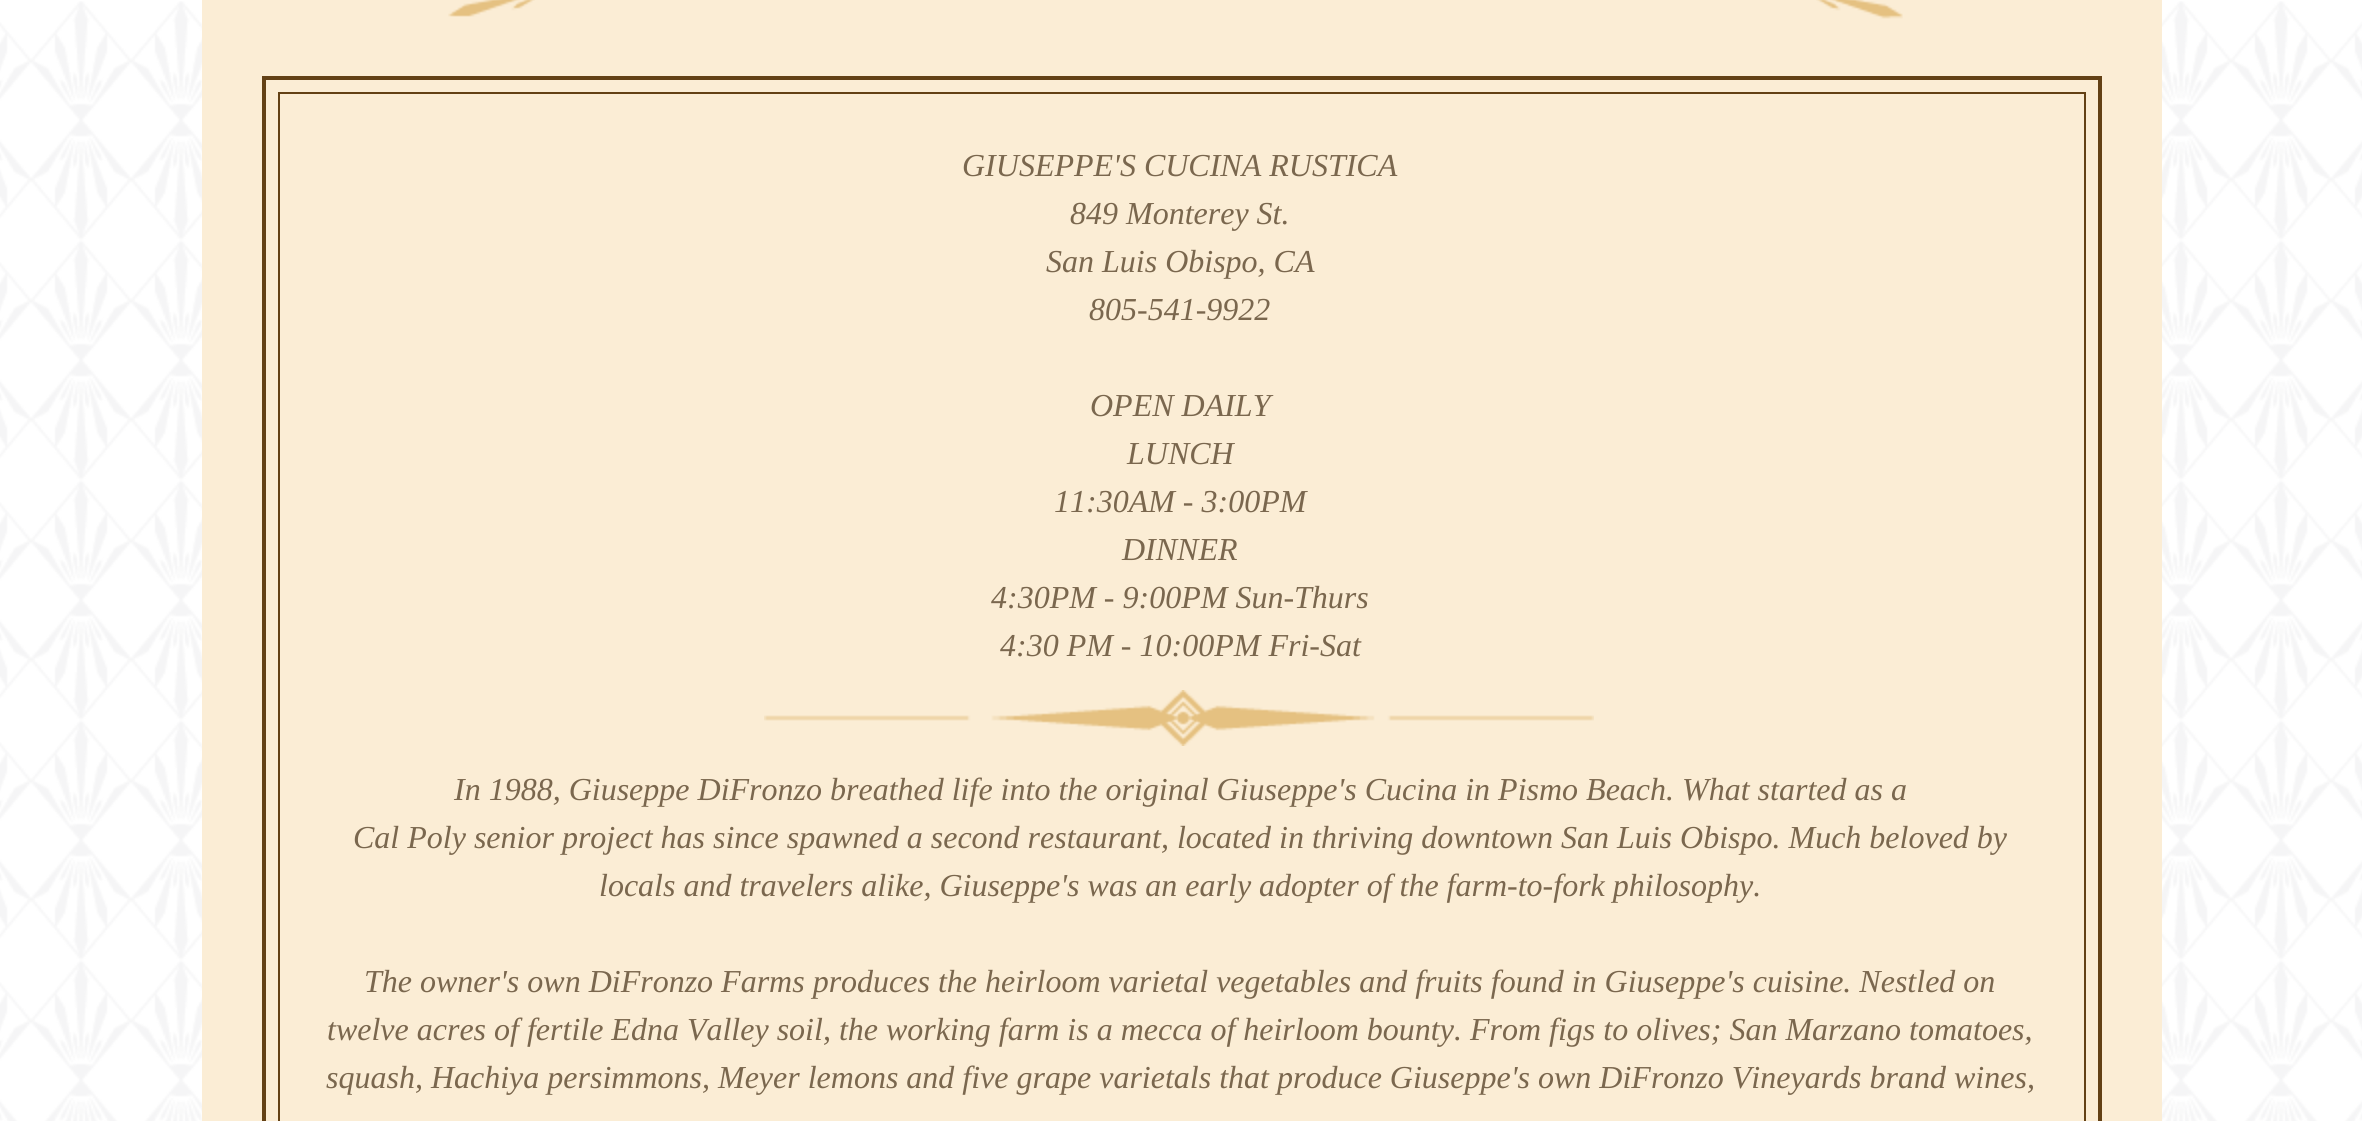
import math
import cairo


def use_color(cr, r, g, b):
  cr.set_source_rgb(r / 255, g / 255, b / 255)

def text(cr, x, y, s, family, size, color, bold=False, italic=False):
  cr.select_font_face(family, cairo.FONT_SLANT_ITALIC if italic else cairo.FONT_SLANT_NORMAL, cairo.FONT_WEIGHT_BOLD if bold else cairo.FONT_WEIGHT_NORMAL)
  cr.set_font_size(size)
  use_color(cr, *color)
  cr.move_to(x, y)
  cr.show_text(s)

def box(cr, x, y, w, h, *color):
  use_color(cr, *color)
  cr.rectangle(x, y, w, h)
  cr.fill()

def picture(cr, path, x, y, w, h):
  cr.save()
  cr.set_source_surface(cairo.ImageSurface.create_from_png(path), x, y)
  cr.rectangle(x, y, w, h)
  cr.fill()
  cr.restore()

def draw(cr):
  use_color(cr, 255, 255, 255)
  cr.paint()
  picture(cr, "img_01.png", 0, 1, 2362, 1120)
  box(cr, 202, 0, 1960, 1121, 251, 237, 213)
  picture(cr, "img_02.png", 448, 0, 87, 17)
  picture(cr, "img_03.png", 1816, 0, 87, 19)
  cr.rectangle(264, 78, 1836, 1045)
  use_color(cr, 99, 65, 21)
  cr.set_line_width(4)
  cr.stroke()
  cr.rectangle(279, 93, 1806, 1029)
  cr.set_line_width(2)
  cr.stroke()
  picture(cr, "img_04.png", 764, 690, 830, 56)
  text(cr, 962, 176, "GIUSEPPE'S CUCINA RUSTICA", "Liberation Serif", 32, (122, 103, 78), italic=True)
  text(cr, 1070, 224, "849 Monterey St.", "Liberation Serif", 32, (122, 103, 78), italic=True)
  text(cr, 1046, 272, "San Luis Obispo, CA", "Liberation Serif", 32, (122, 103, 78), italic=True)
  text(cr, 1089, 320, "805-541-9922", "Liberation Serif", 32, (122, 103, 78), italic=True)
  text(cr, 1090, 416, "OPEN DAILY", "Liberation Serif", 32, (122, 103, 78), italic=True)
  text(cr, 1127, 464, "LUNCH", "Liberation Serif", 32, (122, 103, 78), italic=True)
  text(cr, 1054, 512, "11:30AM - 3:00PM", "Liberation Serif", 32, (122, 103, 78), italic=True)
  text(cr, 1122, 560, "DINNER", "Liberation Serif", 32, (122, 103, 78), italic=True)
  text(cr, 991, 608, "4:30PM - 9:00PM Sun-Thurs", "Liberation Serif", 32, (122, 103, 78), italic=True)
  text(cr, 1000, 656, "4:30 PM - 10:00PM Fri-Sat", "Liberation Serif", 32, (122, 103, 78), italic=True)
  text(cr, 454, 800, "In 1988, Giuseppe DiFronzo breathed life into the original Giuseppe's Cucina in Pismo Beach. What started as a", "Liberation Serif", 32, (122, 103, 78), italic=True)
  text(cr, 353, 848, "Cal Poly senior project has since spawned a second restaurant, located in thriving downtown San Luis Obispo. Much beloved by", "Liberation Serif", 32, (122, 103, 78), italic=True)
  text(cr, 599, 896, "locals and travelers alike, Giuseppe's was an early adopter of the farm-to-fork philosophy.", "Liberation Serif", 32, (122, 103, 78), italic=True)
  text(cr, 364, 992, "The owner's own DiFronzo Farms produces the heirloom varietal vegetables and fruits found in Giuseppe's cuisine. Nestled on", "Liberation Serif", 32, (122, 103, 78), italic=True)
  text(cr, 327, 1040, "twelve acres of fertile Edna Valley soil, the working farm is a mecca of heirloom bounty. From figs to olives; San Marzano tomatoes,", "Liberation Serif", 32, (122, 103, 78), italic=True)
  text(cr, 326, 1088, "squash, Hachiya persimmons, Meyer lemons and five grape varietals that produce Giuseppe's own DiFronzo Vineyards brand wines,", "Liberation Serif", 32, (122, 103, 78), italic=True)


surface = cairo.ImageSurface(cairo.FORMAT_RGB24, 2362, 1121)
cr = cairo.Context(surface)
options = cairo.FontOptions()
options.set_hint_metrics(cairo.HINT_METRICS_OFF)
options.set_hint_style(cairo.HINT_STYLE_NONE)
cr.set_font_options(options)
cr.set_miter_limit(4)
draw(cr)
surface.write_to_png("out.png")
